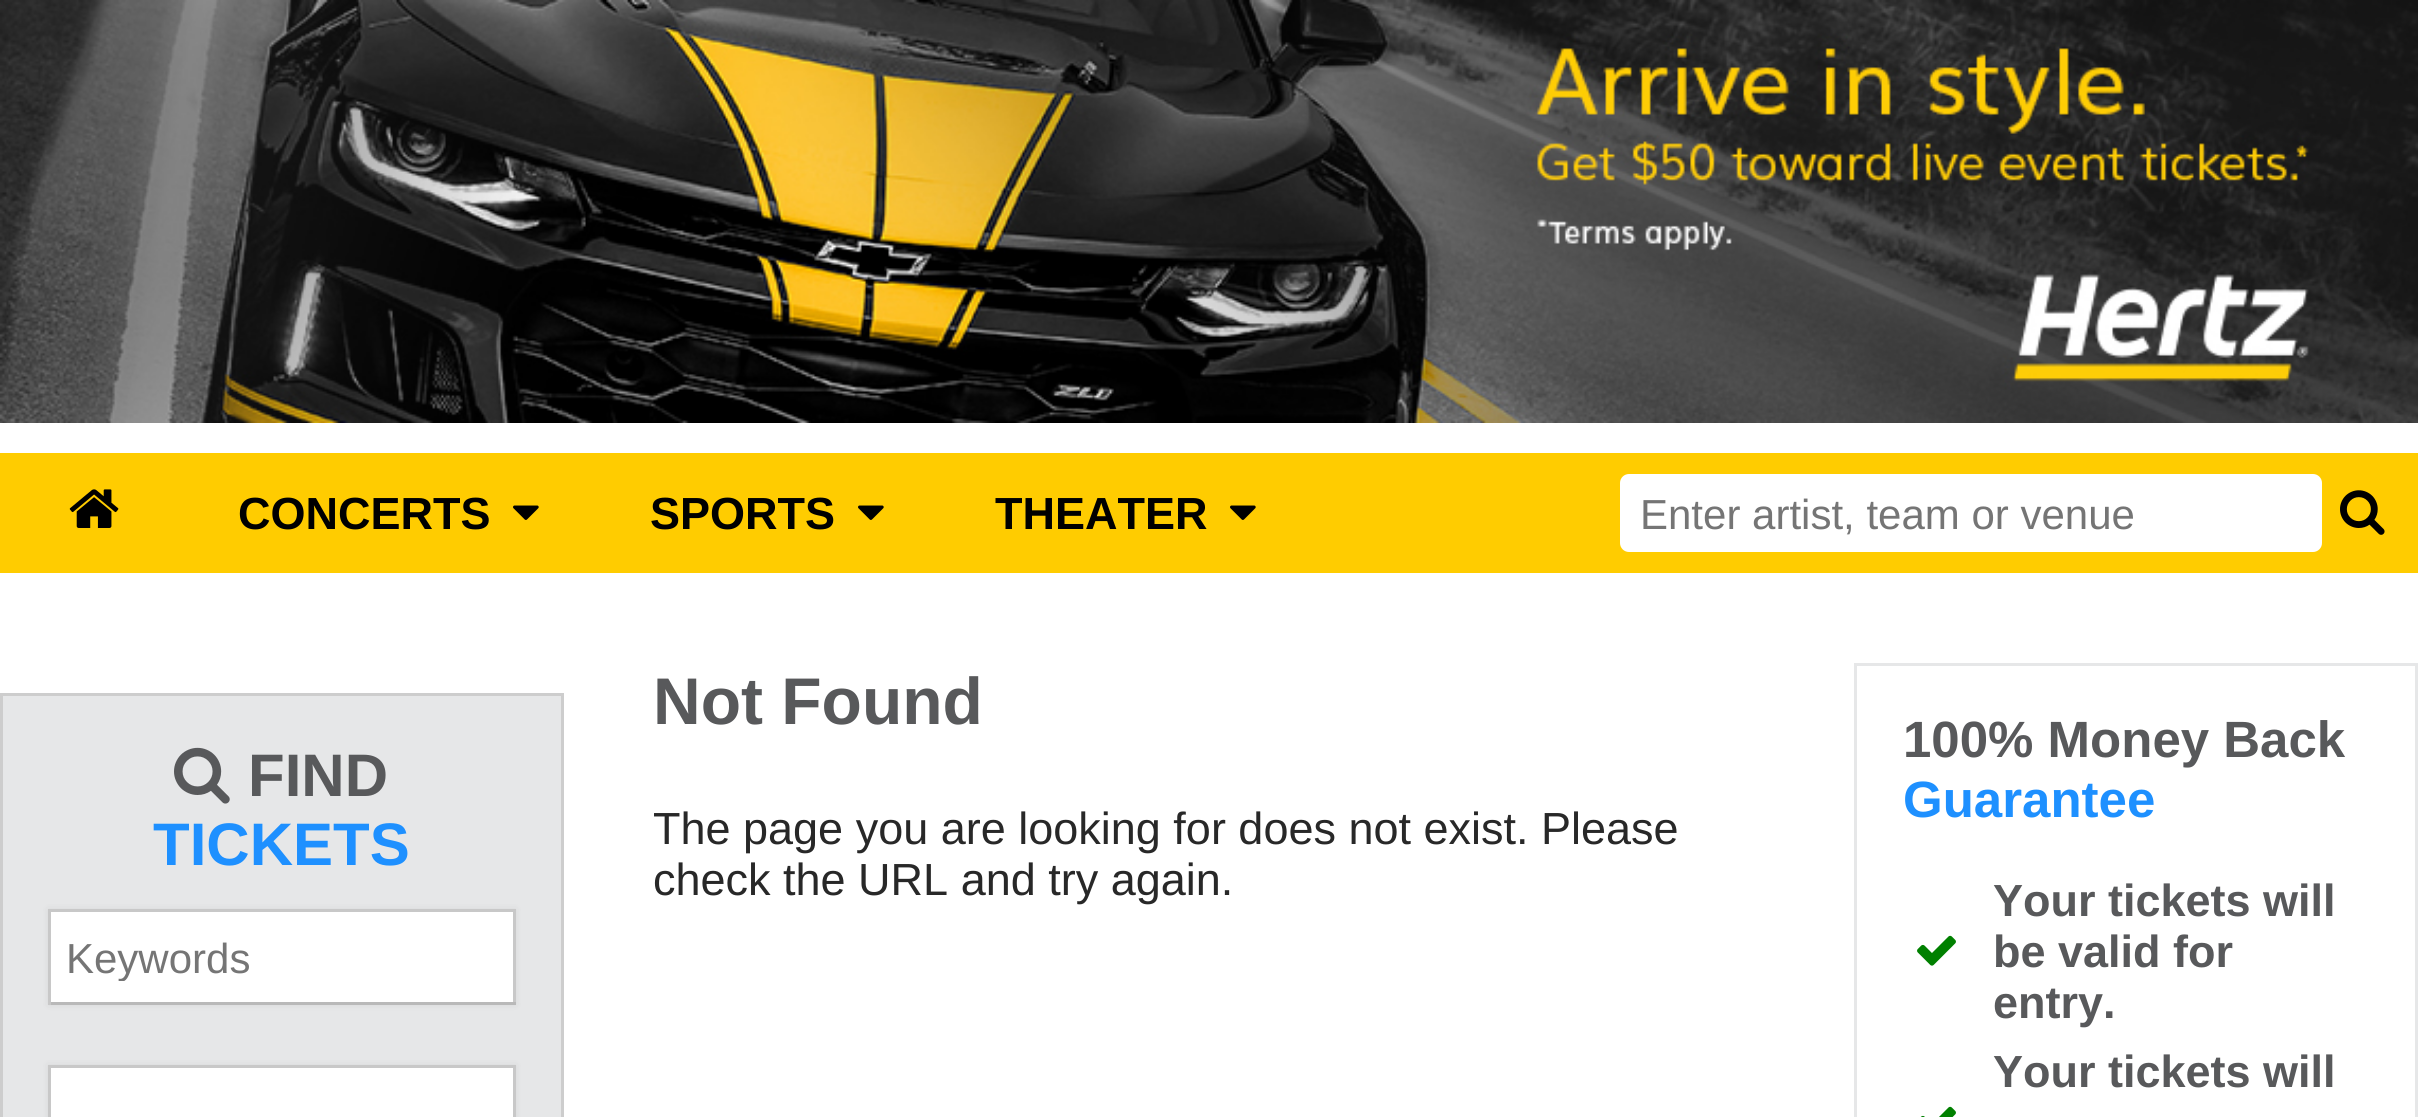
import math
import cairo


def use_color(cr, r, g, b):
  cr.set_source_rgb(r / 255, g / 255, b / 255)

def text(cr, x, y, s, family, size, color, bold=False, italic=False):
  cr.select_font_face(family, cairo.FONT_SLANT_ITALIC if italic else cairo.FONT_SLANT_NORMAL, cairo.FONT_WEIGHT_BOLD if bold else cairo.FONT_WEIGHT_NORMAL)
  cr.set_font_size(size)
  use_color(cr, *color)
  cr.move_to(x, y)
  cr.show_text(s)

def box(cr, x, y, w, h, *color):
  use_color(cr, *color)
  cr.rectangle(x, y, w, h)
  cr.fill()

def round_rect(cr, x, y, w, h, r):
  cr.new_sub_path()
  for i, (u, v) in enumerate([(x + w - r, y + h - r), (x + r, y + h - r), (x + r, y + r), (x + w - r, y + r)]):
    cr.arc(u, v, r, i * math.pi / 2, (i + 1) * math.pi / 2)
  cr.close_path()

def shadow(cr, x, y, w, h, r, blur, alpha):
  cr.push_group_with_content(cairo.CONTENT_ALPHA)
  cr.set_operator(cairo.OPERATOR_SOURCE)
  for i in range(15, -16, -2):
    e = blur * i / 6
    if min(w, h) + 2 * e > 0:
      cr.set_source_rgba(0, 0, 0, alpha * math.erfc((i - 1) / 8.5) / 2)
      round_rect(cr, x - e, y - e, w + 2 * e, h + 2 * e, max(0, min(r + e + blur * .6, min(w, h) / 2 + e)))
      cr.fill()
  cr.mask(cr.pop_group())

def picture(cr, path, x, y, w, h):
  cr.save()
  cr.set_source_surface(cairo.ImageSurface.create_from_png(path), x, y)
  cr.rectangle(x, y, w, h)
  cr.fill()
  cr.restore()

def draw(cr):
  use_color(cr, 255, 255, 255)
  cr.paint()
  picture(cr, "img_01.png", 0, 0, 2418, 423)
  box(cr, 0, 453, 2418, 120, 255, 204, 0)
  picture(cr, "img_02.png", 69, 489, 50, 39)
  picture(cr, "img_03.png", 513, 505, 26, 15)
  picture(cr, "img_03.png", 858, 505, 26, 15)
  picture(cr, "img_03.png", 1230, 505, 26, 15)
  use_color(cr, 255, 255, 255)
  round_rect(cr, 1620, 474, 702, 78, 9)
  cr.fill()
  picture(cr, "img_04.png", 2340, 490, 45, 45)
  box(cr, 3, 696, 558, 421, 230, 231, 232)
  box(cr, 0, 693, 564, 3, 205, 205, 205)
  box(cr, 561, 693, 3, 424, 205, 205, 205)
  box(cr, 0, 693, 3, 424, 205, 205, 205)
  picture(cr, "img_05.png", 174, 747, 56, 57)
  use_color(cr, 60, 60, 60)
  shadow(cr, 48, 909, 468, 96, 0, 3, 0.1)
  box(cr, 51, 912, 462, 90, 255, 255, 255)
  box(cr, 48, 909, 468, 3, 200, 200, 200)
  box(cr, 513, 909, 3, 96, 200, 200, 200)
  box(cr, 48, 1002, 468, 3, 185, 185, 185)
  box(cr, 48, 909, 3, 96, 200, 200, 200)
  use_color(cr, 60, 60, 60)
  shadow(cr, 48, 1065, 468, 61, 0, 3, 0.1)
  box(cr, 51, 1068, 462, 49, 255, 255, 255)
  box(cr, 48, 1065, 468, 3, 200, 200, 200)
  box(cr, 513, 1065, 3, 52, 200, 200, 200)
  box(cr, 48, 1065, 3, 52, 200, 200, 200)
  box(cr, 1854, 663, 564, 3, 230, 231, 232)
  box(cr, 2415, 663, 3, 454, 230, 231, 232)
  box(cr, 1854, 663, 3, 454, 230, 231, 232)
  picture(cr, "img_06.png", 1917, 935, 39, 31)
  picture(cr, "img_07.png", 1920, 1106, 36, 11)
  text(cr, 238, 529, "CONCERTS", "Liberation Sans", 45, (0, 0, 0), bold=True)
  text(cr, 650, 529, "SPORTS", "Liberation Sans", 45, (0, 0, 0), bold=True)
  text(cr, 995, 529, "THEATER", "Liberation Sans", 45, (0, 0, 0), bold=True)
  text(cr, 1640, 529, "Enter artist, team or venue", "Liberation Sans", 42, (117, 117, 117))
  text(cr, 248, 796, "FIND", "Liberation Sans", 60, (88, 89, 91), bold=True)
  text(cr, 153, 865, "TICKETS", "Liberation Sans", 60, (30, 144, 255), bold=True)
  cr.save()
  cr.rectangle(66, 933, 432, 48)
  cr.clip()
  text(cr, 66, 973, "Keywords", "Liberation Sans", 42, (117, 117, 117))
  cr.restore()
  text(cr, 653, 724, "Not Found", "Liberation Sans", 66, (88, 89, 91), bold=True)
  text(cr, 653, 844, "The page you are looking for does not exist. Please", "Liberation Sans", 45, (40, 40, 40))
  text(cr, 653, 895, "check the URL and try again.", "Liberation Sans", 45, (40, 40, 40))
  text(cr, 1903, 757, "100% Money Back", "Liberation Sans", 51, (88, 89, 91), bold=True)
  text(cr, 1903, 817, "Guarantee", "Liberation Sans", 51, (30, 144, 255), bold=True)
  text(cr, 1993, 916, "Your tickets will", "Liberation Sans", 45, (88, 89, 91), bold=True)
  text(cr, 1993, 967, "be valid for", "Liberation Sans", 45, (88, 89, 91), bold=True)
  text(cr, 1993, 1018, "entry.", "Liberation Sans", 45, (88, 89, 91), bold=True)
  text(cr, 1993, 1087, "Your tickets will", "Liberation Sans", 45, (88, 89, 91), bold=True)


surface = cairo.ImageSurface(cairo.FORMAT_RGB24, 2418, 1117)
cr = cairo.Context(surface)
options = cairo.FontOptions()
options.set_hint_metrics(cairo.HINT_METRICS_OFF)
options.set_hint_style(cairo.HINT_STYLE_NONE)
cr.set_font_options(options)
cr.set_miter_limit(4)
draw(cr)
surface.write_to_png("out.png")
